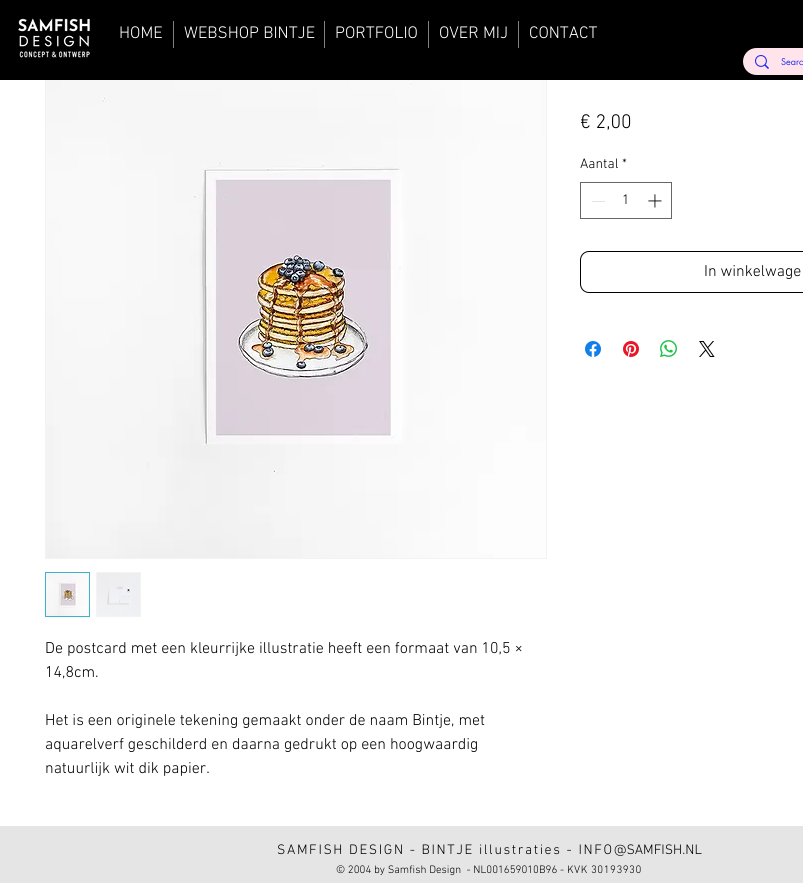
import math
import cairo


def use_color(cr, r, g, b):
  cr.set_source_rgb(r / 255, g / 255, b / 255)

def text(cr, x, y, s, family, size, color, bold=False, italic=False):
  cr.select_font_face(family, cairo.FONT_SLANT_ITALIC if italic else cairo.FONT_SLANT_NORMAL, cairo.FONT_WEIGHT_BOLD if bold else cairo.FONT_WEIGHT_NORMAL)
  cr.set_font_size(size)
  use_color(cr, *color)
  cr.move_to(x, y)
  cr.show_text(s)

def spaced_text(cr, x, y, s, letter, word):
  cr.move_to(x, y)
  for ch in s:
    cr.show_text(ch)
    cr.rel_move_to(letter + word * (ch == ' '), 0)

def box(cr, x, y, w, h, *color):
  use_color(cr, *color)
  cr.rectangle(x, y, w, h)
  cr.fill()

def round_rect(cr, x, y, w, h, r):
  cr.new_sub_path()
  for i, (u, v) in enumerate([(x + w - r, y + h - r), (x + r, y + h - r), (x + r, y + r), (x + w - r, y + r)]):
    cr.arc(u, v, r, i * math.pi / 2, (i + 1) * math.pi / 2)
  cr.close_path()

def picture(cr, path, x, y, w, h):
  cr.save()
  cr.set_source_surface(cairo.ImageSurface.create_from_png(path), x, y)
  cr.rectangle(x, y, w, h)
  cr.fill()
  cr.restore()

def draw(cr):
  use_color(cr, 255, 255, 255)
  cr.paint()
  cr.rectangle(45.5, 57.5, 501, 501)
  use_color(cr, 243, 243, 243)
  cr.set_line_width(1)
  cr.stroke()
  box(cr, 0, 0, 803, 80, 0, 0, 0)
  picture(cr, "img_01.png", 18, 18, 72, 40)
  box(cr, 173, 21, 1, 27, 128, 128, 128)
  box(cr, 324, 21, 1, 27, 128, 128, 128)
  box(cr, 428, 21, 1, 27, 128, 128, 128)
  box(cr, 518, 21, 1, 27, 128, 128, 128)
  use_color(cr, 255, 228, 236)
  round_rect(cr, 743, 48, 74, 27, 13.5)
  cr.fill()
  picture(cr, "img_02.png", 755, 55, 14, 14)
  cr.rectangle(580.5, 182.5, 91, 36)
  use_color(cr, 102, 102, 102)
  cr.stroke()
  box(cr, 592, 201, 13, 1, 227, 227, 227)
  picture(cr, "img_03.png", 648, 194, 14, 14)
  round_rect(cr, 580.5, 251.5, 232, 41, 8.5)
  use_color(cr, 0, 0, 0)
  cr.stroke()
  picture(cr, "img_04.png", 585, 341, 16, 16)
  picture(cr, "img_05.png", 623, 341, 16, 16)
  picture(cr, "img_06.png", 660, 340, 17, 17)
  picture(cr, "img_07.png", 699, 341, 16, 16)
  picture(cr, "img_08.png", 46, 80, 500, 478)
  cr.rectangle(45.5, 572.5, 44, 44)
  use_color(cr, 58, 179, 207)
  cr.stroke()
  picture(cr, "img_09.png", 46, 573, 43, 43)
  box(cr, 96, 572, 45, 45, 243, 243, 243)
  picture(cr, "img_10.png", 97, 573, 43, 43)
  box(cr, 0, 826, 803, 57, 230, 229, 229)
  text(cr, 119, 38, "HOME", "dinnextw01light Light", 17, (255, 255, 255))
  text(cr, 184, 38, "WEBSHOP BINTJE", "dinnextw01light Light", 17, (255, 255, 255))
  text(cr, 335, 38, "PORTFOLIO", "dinnextw01light Light", 17, (255, 255, 255))
  text(cr, 439, 38, "OVER MIJ", "dinnextw01light Light", 17, (255, 255, 255))
  text(cr, 529, 38, "CONTACT", "dinnextw01light Light", 17, (255, 255, 255))
  text(cr, 781, 65, "Searc", "futura", 9, (31, 43, 243))
  text(cr, 580, 128, "€ 2,00", "dinnextw01light Light", 20, (0, 0, 0))
  text(cr, 580, 168, "Aantal", "dinnextw01light Light", 14, (0, 0, 0))
  text(cr, 622, 168, "*", "dinnextw01light Light", 14, (0, 0, 0))
  text(cr, 622, 204, "1", "dinnextw01light Light", 14, (0, 0, 0))
  text(cr, 704, 276, "In winkelwage", "dinnextw01light Light", 16, (0, 0, 0))
  text(cr, 45, 653, "De postcard met een kleurrijke illustratie heeft een formaat van 10,5 ×", "dinnextw01light Light", 16, (0, 0, 0))
  text(cr, 45, 677, "14,8cm.", "dinnextw01light Light", 16, (0, 0, 0))
  text(cr, 45, 725, "Het is een originele tekening gemaakt onder de naam Bintje, met", "dinnextw01light Light", 16, (0, 0, 0))
  text(cr, 45, 749, "aquarelverf geschilderd en daarna gedrukt op een hoogwaardig", "dinnextw01light Light", 16, (0, 0, 0))
  text(cr, 45, 773, "natuurlijk wit dik papier.", "dinnextw01light Light", 16, (0, 0, 0))
  cr.set_font_size(14)
  spaced_text(cr, 277, 854, "SAMFISH DESIGN - BINTJE illustraties - INFO", 1.6, 0)
  text(cr, 614, 854, "@SAMFISH.NL", "dinnextw01light Light", 14, (0, 0, 0))
  text(cr, 336, 873, "© 2004 by Samfish Design  - NL001659010B96 -", "dinnextw01light Light", 11, (0, 0, 0))
  spaced_text(cr, 567, 873, "KVK 30193930", 0.5, 0)


surface = cairo.ImageSurface(cairo.FORMAT_RGB24, 803, 883)
cr = cairo.Context(surface)
options = cairo.FontOptions()
options.set_hint_metrics(cairo.HINT_METRICS_OFF)
options.set_hint_style(cairo.HINT_STYLE_NONE)
cr.set_font_options(options)
cr.set_miter_limit(4)
draw(cr)
surface.write_to_png("out.png")
